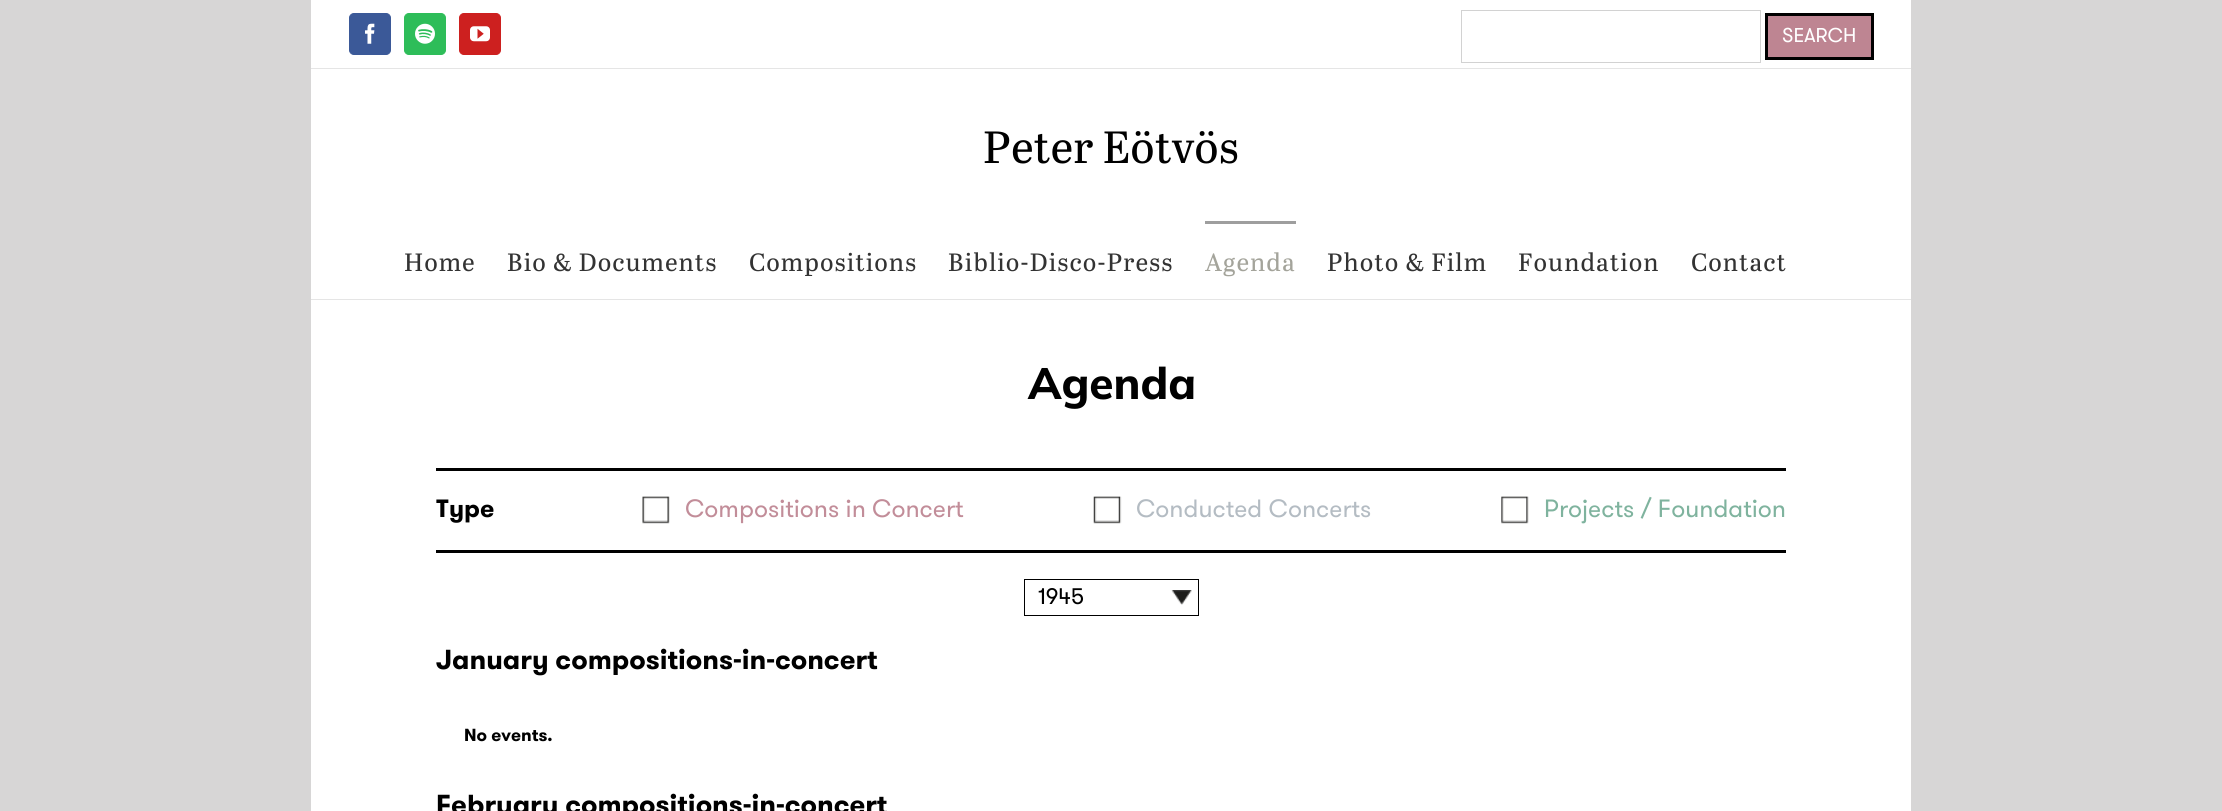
import math
import cairo


def use_color(cr, r, g, b):
  cr.set_source_rgb(r / 255, g / 255, b / 255)

def text(cr, x, y, s, family, size, color, bold=False, italic=False):
  cr.select_font_face(family, cairo.FONT_SLANT_ITALIC if italic else cairo.FONT_SLANT_NORMAL, cairo.FONT_WEIGHT_BOLD if bold else cairo.FONT_WEIGHT_NORMAL)
  cr.set_font_size(size)
  use_color(cr, *color)
  cr.move_to(x, y)
  cr.show_text(s)

def spaced_text(cr, x, y, s, letter, word):
  cr.move_to(x, y)
  for ch in s:
    cr.show_text(ch)
    cr.rel_move_to(letter + word * (ch == ' '), 0)

def box(cr, x, y, w, h, *color):
  use_color(cr, *color)
  cr.rectangle(x, y, w, h)
  cr.fill()

def round_rect(cr, x, y, w, h, r):
  cr.new_sub_path()
  for i, (u, v) in enumerate([(x + w - r, y + h - r), (x + r, y + h - r), (x + r, y + r), (x + w - r, y + r)]):
    cr.arc(u, v, r, i * math.pi / 2, (i + 1) * math.pi / 2)
  cr.close_path()

def picture(cr, path, x, y, w, h):
  cr.save()
  cr.set_source_surface(cairo.ImageSurface.create_from_png(path), x, y)
  cr.rectangle(x, y, w, h)
  cr.fill()
  cr.restore()

def draw(cr):
  use_color(cr, 215, 214, 214)
  cr.paint()
  box(cr, 311, 0, 1600, 68, 255, 255, 255)
  box(cr, 311, 68, 1600, 1, 229, 229, 229)
  use_color(cr, 59, 89, 152)
  round_rect(cr, 349.5, 13.5, 41, 41, 4.5)
  cr.fill_preserve()
  cr.set_line_width(1)
  cr.stroke()
  picture(cr, "img_01.png", 365, 23, 10, 21)
  use_color(cr, 46, 189, 89)
  round_rect(cr, 404.5, 13.5, 41, 41, 4.5)
  cr.fill_preserve()
  cr.stroke()
  picture(cr, "img_02.png", 415, 23, 20, 21)
  use_color(cr, 205, 32, 31)
  round_rect(cr, 459.5, 13.5, 41, 41, 4.5)
  cr.fill_preserve()
  cr.stroke()
  picture(cr, "img_03.png", 470, 26, 20, 16)
  cr.rectangle(1461.5, 10.5, 299, 52)
  use_color(cr, 210, 210, 210)
  cr.stroke()
  use_color(cr, 190, 133, 146)
  cr.rectangle(1766.5, 14.5, 106, 44)
  cr.fill_preserve()
  use_color(cr, 0, 0, 0)
  cr.set_line_width(3)
  cr.stroke()
  box(cr, 311, 69, 1600, 230, 255, 255, 255)
  box(cr, 311, 299, 1600, 1, 229, 229, 229)
  box(cr, 1205, 221, 91, 3, 158, 158, 158)
  box(cr, 311, 300, 1600, 511, 255, 255, 255)
  box(cr, 436, 468, 1350, 3, 0, 0, 0)
  picture(cr, "img_04.png", 642, 496, 28, 28)
  picture(cr, "img_05.png", 1093, 496, 29, 28)
  picture(cr, "img_06.png", 1501, 496, 28, 28)
  box(cr, 436, 550, 1350, 3, 0, 0, 0)
  picture(cr, "img_07.png", 1171, 590, 21, 15)
  cr.rectangle(1024.5, 579.5, 174, 36)
  cr.set_line_width(1)
  cr.stroke()
  text(cr, 1782, 42, "SEARCH", "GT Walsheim", 20, (255, 255, 255))
  text(cr, 983, 163, "Peter Eötvös", "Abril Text", 45, (0, 0, 0))
  cr.set_font_size(25)
  use_color(cr, 51, 51, 51)
  spaced_text(cr, 404, 271, "Home", 1, 0)
  spaced_text(cr, 507, 271, "Bio & Documents", 1, 0)
  spaced_text(cr, 749, 271, "Compositions", 1, 0)
  spaced_text(cr, 948, 271, "Biblio-Disco-Press", 1, 0)
  use_color(cr, 164, 164, 155)
  spaced_text(cr, 1205, 271, "Agenda", 1, 0)
  use_color(cr, 51, 51, 51)
  spaced_text(cr, 1327, 271, "Photo & Film", 1, 0)
  spaced_text(cr, 1518, 271, "Foundation", 1, 0)
  spaced_text(cr, 1691, 271, "Contact", 1, 0)
  text(cr, 1028, 399, "Agenda", "Mulish ExtraLight", 44, (0, 0, 0))
  text(cr, 436, 517, "Type", "GT Walsheim", 25, (0, 0, 0), bold=True)
  text(cr, 685, 517, "Compositions in Concert", "GT Walsheim", 25, (194, 141, 153))
  text(cr, 1136, 517, "Conducted Concerts", "GT Walsheim", 25, (180, 188, 195))
  text(cr, 1544, 517, "Projects / Foundation", "GT Walsheim", 25, (127, 179, 158))
  text(cr, 1038, 604, "1945", "GT Walsheim", 22.5, (0, 0, 0))
  text(cr, 436, 669, "January compositions-in-concert", "GT Walsheim", 27.5, (0, 0, 0), bold=True)
  text(cr, 464, 741, "No events.", "GT Walsheim", 17.5, (0, 0, 0), bold=True)
  text(cr, 436, 814, "February compositions-in-concert", "GT Walsheim", 27.5, (0, 0, 0), bold=True)


surface = cairo.ImageSurface(cairo.FORMAT_RGB24, 2222, 811)
cr = cairo.Context(surface)
options = cairo.FontOptions()
options.set_hint_metrics(cairo.HINT_METRICS_OFF)
options.set_hint_style(cairo.HINT_STYLE_NONE)
cr.set_font_options(options)
cr.set_miter_limit(4)
draw(cr)
surface.write_to_png("out.png")
